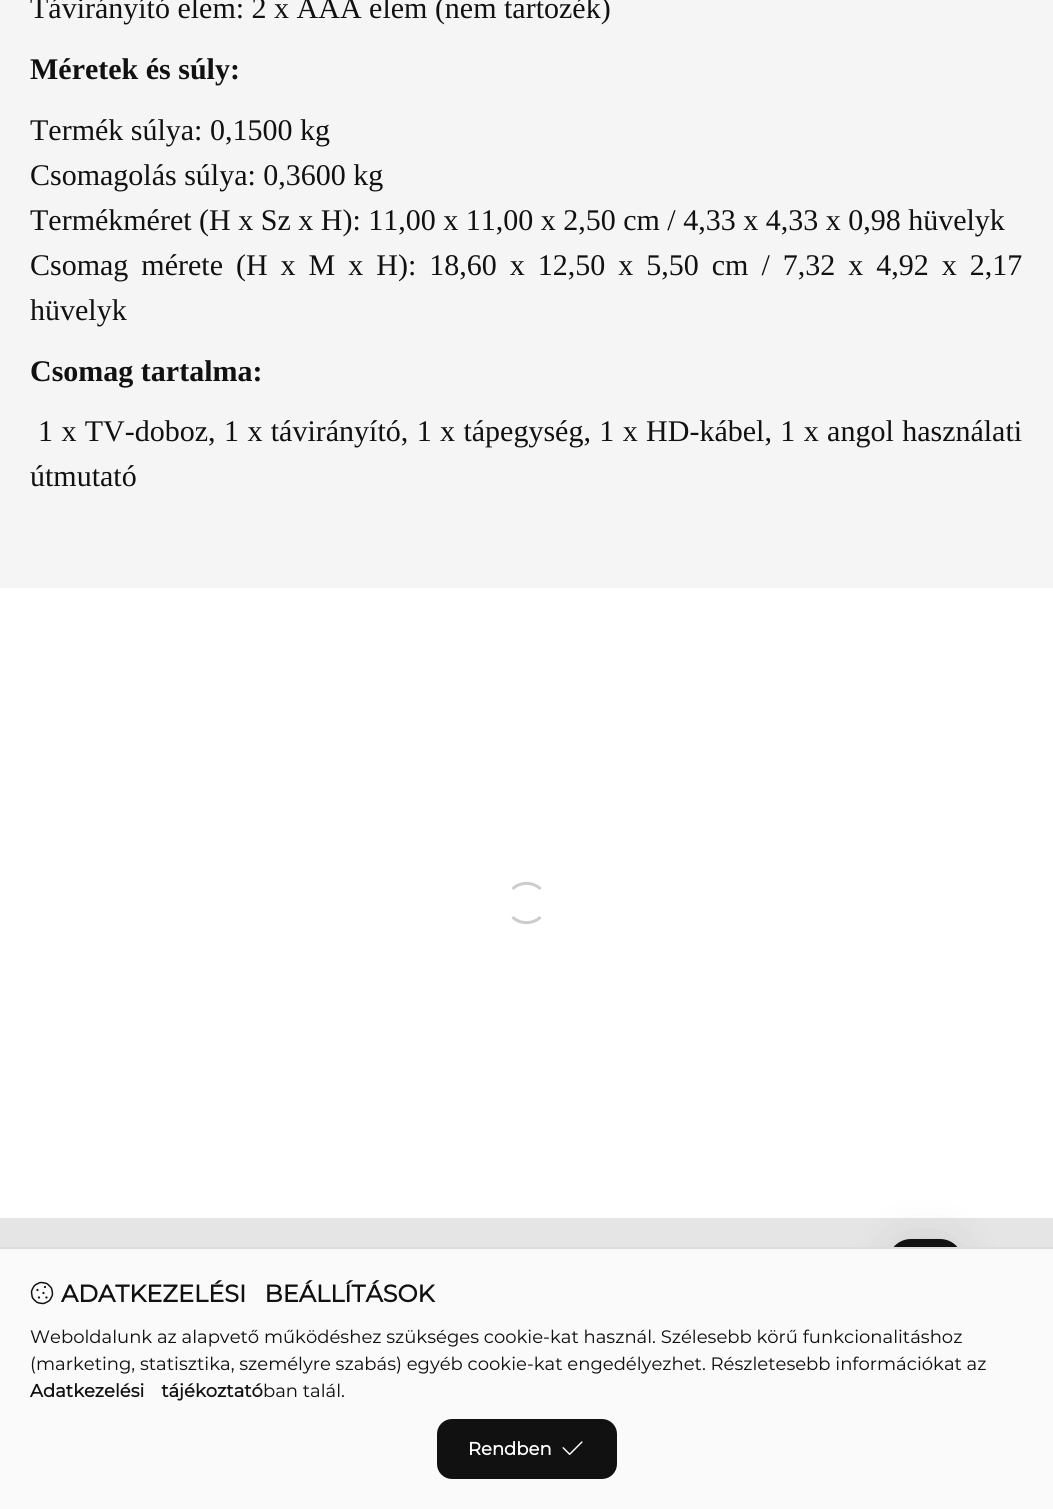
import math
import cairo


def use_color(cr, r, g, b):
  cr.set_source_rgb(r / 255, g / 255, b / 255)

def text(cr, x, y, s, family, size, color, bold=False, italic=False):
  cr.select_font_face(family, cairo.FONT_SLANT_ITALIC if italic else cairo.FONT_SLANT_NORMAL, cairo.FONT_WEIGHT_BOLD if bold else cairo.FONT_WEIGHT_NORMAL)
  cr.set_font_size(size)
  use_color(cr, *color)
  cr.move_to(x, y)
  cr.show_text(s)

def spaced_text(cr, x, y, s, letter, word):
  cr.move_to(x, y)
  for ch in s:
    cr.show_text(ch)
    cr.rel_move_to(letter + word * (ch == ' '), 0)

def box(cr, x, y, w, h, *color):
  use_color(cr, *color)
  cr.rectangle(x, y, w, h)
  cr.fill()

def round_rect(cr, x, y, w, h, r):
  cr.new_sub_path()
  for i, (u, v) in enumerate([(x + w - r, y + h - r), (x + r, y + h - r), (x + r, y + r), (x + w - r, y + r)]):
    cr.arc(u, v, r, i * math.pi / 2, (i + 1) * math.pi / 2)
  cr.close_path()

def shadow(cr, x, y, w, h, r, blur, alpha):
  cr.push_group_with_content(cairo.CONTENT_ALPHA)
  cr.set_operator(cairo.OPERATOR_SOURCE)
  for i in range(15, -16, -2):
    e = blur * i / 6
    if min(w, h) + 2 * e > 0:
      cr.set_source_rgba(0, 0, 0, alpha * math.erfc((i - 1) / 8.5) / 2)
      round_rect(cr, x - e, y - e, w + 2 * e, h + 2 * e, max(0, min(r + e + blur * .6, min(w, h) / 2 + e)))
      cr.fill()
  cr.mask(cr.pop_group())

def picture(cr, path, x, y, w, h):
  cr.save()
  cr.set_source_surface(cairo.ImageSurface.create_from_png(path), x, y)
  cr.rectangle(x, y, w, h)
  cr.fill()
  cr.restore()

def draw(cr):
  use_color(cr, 245, 245, 245)
  cr.paint()
  box(cr, 0, 588, 1053, 630, 255, 255, 255)
  cr.new_path()
  cr.move_to(512.5, 889)
  cr.curve_to(520, 881.5, 533, 881.5, 540.5, 889)
  cr.move_to(540.5, 917)
  cr.curve_to(533, 924.5, 520, 924.5, 512.5, 917)
  use_color(cr, 204, 204, 204)
  cr.set_line_width(3)
  cr.stroke()
  box(cr, 0, 1218, 1053, 29, 229, 229, 229)
  use_color(cr, 0, 0, 0)
  shadow(cr, 888, 1239, 75, 75, 23, 22.5, 0.1)
  use_color(cr, 17, 17, 17)
  round_rect(cr, 888, 1239, 75, 75, 23)
  cr.fill()
  box(cr, 0, 1249, 1053, 260, 250, 250, 250)
  box(cr, 0, 1247, 1053, 2, 221, 221, 221)
  picture(cr, "img_01.png", 30, 1281, 24, 24)
  use_color(cr, 17, 17, 17)
  round_rect(cr, 438, 1420, 178, 58, 14)
  cr.fill_preserve()
  cr.set_line_width(2)
  cr.stroke()
  picture(cr, "img_02.png", 562, 1441, 21, 14)
  text(cr, 30, 18, "Távirányító elem: 2 x AAA elem (nem tartozék)", "Liberation Serif", 30, (17, 17, 17))
  text(cr, 30, 79, "Méretek és súly:", "Liberation Serif", 30, (17, 17, 17), bold=True)
  text(cr, 30, 140, "Termék súlya: 0,1500 kg", "Liberation Serif", 30, (17, 17, 17))
  text(cr, 30, 185, "Csomagolás súlya: 0,3600 kg", "Liberation Serif", 30, (17, 17, 17))
  text(cr, 30, 230, "Termékméret (H x Sz x H): 11,00 x 11,00 x 2,50 cm / 4,33 x 4,33 x 0,98 hüvelyk", "Liberation Serif", 30, (17, 17, 17))
  spaced_text(cr, 30, 275, "Csomag mérete (H x M x H): 18,60 x 12,50 x 5,50 cm / 7,32 x 4,92 x 2,17", 0, 5.5)
  text(cr, 30, 320, "hüvelyk", "Liberation Serif", 30, (17, 17, 17))
  text(cr, 30, 381, "Csomag tartalma:", "Liberation Serif", 30, (17, 17, 17), bold=True)
  cr.select_font_face("Liberation Serif")
  spaced_text(cr, 38, 441, "1 x TV-doboz, 1 x távirányító, 1 x tápegység, 1 x HD-kábel, 1 x angol használati", 0, 0.9)
  text(cr, 30, 486, "útmutató", "Liberation Serif", 30, (17, 17, 17))
  cr.select_font_face("Montserrat", cairo.FONT_SLANT_NORMAL, cairo.FONT_WEIGHT_BOLD)
  cr.set_font_size(24)
  spaced_text(cr, 61, 1302, "ADATKEZELÉSI BEÁLLÍTÁSOK", 0, 12)
  text(cr, 30, 1343, "Weboldalunk az alapvető működéshez szükséges cookie-kat használ. Szélesebb körű funkcionalitáshoz", "Montserrat", 18, (17, 17, 17))
  text(cr, 30, 1370, "(marketing, statisztika, személyre szabás) egyéb cookie-kat engedélyezhet. Részletesebb információkat az", "Montserrat", 18, (17, 17, 17))
  cr.select_font_face("Montserrat", cairo.FONT_SLANT_NORMAL, cairo.FONT_WEIGHT_BOLD)
  spaced_text(cr, 30, 1397, "Adatkezelési tájékoztató", 0, 12)
  text(cr, 263, 1397, "ban talál.", "Montserrat", 18, (17, 17, 17))
  text(cr, 468, 1455, "Rendben", "Montserrat", 18, (255, 255, 255), bold=True)


surface = cairo.ImageSurface(cairo.FORMAT_RGB24, 1053, 1509)
cr = cairo.Context(surface)
options = cairo.FontOptions()
options.set_hint_metrics(cairo.HINT_METRICS_OFF)
options.set_hint_style(cairo.HINT_STYLE_NONE)
cr.set_font_options(options)
cr.set_miter_limit(4)
draw(cr)
surface.write_to_png("out.png")
